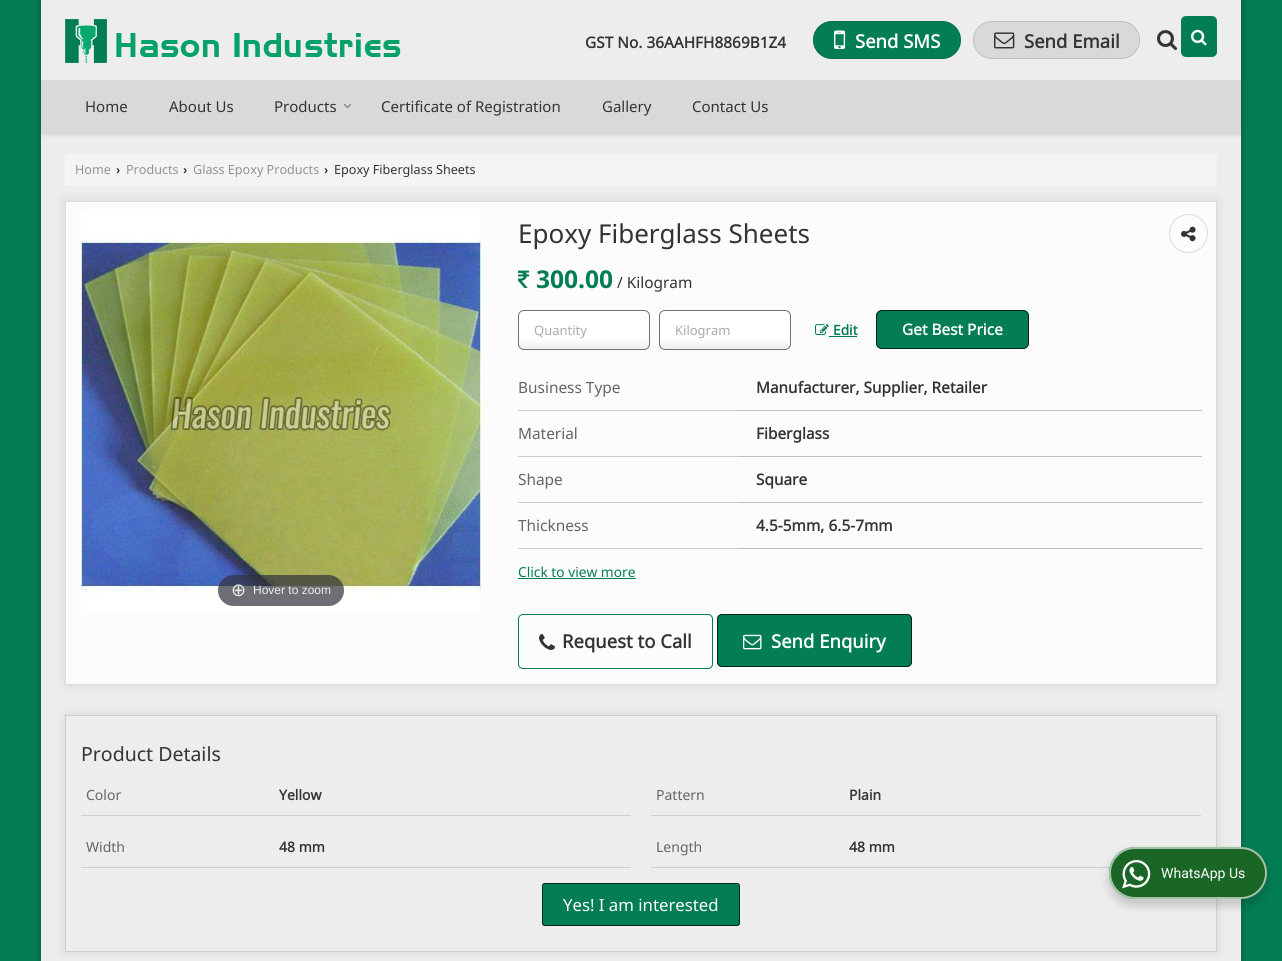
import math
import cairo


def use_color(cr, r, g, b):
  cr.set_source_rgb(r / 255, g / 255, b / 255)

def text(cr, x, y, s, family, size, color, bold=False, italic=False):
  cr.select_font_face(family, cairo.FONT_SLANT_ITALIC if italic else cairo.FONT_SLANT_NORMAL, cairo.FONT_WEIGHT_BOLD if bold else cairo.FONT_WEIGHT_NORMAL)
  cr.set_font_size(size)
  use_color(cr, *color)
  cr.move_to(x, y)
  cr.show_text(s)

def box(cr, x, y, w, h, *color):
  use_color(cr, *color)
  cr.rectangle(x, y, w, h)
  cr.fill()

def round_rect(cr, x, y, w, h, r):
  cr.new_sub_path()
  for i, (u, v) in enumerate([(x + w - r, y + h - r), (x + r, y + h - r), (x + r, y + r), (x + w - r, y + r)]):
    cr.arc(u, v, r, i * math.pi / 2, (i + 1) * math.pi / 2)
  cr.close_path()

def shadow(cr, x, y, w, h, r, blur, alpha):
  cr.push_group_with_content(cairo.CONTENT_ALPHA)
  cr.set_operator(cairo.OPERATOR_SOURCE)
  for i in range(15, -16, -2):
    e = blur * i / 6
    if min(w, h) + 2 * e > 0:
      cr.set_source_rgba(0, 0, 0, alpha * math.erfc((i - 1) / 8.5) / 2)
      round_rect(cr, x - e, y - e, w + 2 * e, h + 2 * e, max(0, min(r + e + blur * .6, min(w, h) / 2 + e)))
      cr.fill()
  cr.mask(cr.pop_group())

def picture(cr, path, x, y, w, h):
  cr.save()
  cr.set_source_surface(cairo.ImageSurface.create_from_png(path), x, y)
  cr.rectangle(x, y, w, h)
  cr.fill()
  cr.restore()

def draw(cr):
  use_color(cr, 3, 125, 84)
  cr.paint()
  use_color(cr, 0, 0, 0)
  shadow(cr, 40, -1, 1202, 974, 0, 4, 0.2)
  box(cr, 41, 0, 1200, 961, 237, 237, 237)
  cr.save()
  cr.set_fill_rule(cairo.FILL_RULE_EVEN_ODD)
  cr.new_path()
  cr.move_to(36, 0)
  cr.line_to(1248, 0)
  cr.line_to(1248, 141)
  cr.line_to(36, 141)
  cr.close_path()
  cr.move_to(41, 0)
  cr.line_to(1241, 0)
  cr.line_to(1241, 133)
  cr.line_to(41, 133)
  cr.close_path()
  cr.clip()
  use_color(cr, 0, 0, 0)
  shadow(cr, 42, 2, 1200, 133, 0, 1.5, 0.1)
  cr.restore()
  picture(cr, "img_01.png", 65, 19, 336, 44)
  use_color(cr, 3, 125, 84)
  round_rect(cr, 813, 21, 148, 38, 19)
  cr.fill()
  round_rect(cr, 813.5, 21.5, 147, 37, 18.5)
  cr.set_source_rgba(0, 0, 0, 0.13)
  cr.set_line_width(1)
  cr.stroke()
  picture(cr, "img_02.png", 834, 30, 12, 19)
  use_color(cr, 217, 217, 217)
  round_rect(cr, 973, 21, 167, 38, 19)
  cr.fill()
  round_rect(cr, 973.5, 21.5, 166, 37, 18.5)
  cr.set_source_rgba(0, 0, 0, 0.13)
  cr.stroke()
  picture(cr, "img_03.png", 994, 32, 21, 17)
  picture(cr, "img_04.png", 1157, 30, 20, 21)
  use_color(cr, 3, 125, 84)
  round_rect(cr, 1181, 16, 36, 41, 5)
  cr.fill()
  picture(cr, "img_05.png", 1191, 29, 16, 17)
  box(cr, 41, 80, 1200, 53, 217, 217, 217)
  picture(cr, "img_06.png", 344, 104, 7, 5)
  box(cr, 65, 154, 1152, 32, 244, 244, 244)
  use_color(cr, 204, 204, 204)
  shadow(cr, 65, 201, 1152, 484, 0, 5, 0.67)
  use_color(cr, 252, 252, 252)
  cr.rectangle(65.5, 201.5, 1151, 483)
  cr.fill_preserve()
  use_color(cr, 219, 219, 219)
  cr.stroke()
  picture(cr, "img_07.png", 81, 214, 400, 400)
  cr.set_source_rgba(0.192, 0.2, 0.239, 0.7)
  round_rect(cr, 218, 575, 126, 31, 15.5)
  cr.fill()
  cr.arc(1188.5, 233.5, 19, 0, 2 * math.pi)
  use_color(cr, 219, 219, 219)
  cr.stroke()
  picture(cr, "img_08.png", 1181, 226, 15, 16)
  picture(cr, "img_09.png", 518, 270, 12, 18)
  cr.save()
  round_rect(cr, 518, 310, 132, 40, 6)
  cr.clip()
  gradient = cairo.LinearGradient(584, 311, 584, 349)
  gradient.add_color_stop_rgba(0.7, 1, 1, 1, 1)
  gradient.add_color_stop_rgba(1, 0.933, 0.933, 0.933, 1)
  cr.set_source(gradient)
  cr.rectangle(518, 311, 132, 38)
  cr.fill()
  cr.restore()
  round_rect(cr, 518.5, 310.5, 131, 39, 5.5)
  use_color(cr, 113, 113, 113)
  cr.stroke()
  cr.save()
  round_rect(cr, 659, 310, 132, 40, 6)
  cr.clip()
  gradient = cairo.LinearGradient(725, 311, 725, 349)
  gradient.add_color_stop_rgba(0.7, 1, 1, 1, 1)
  gradient.add_color_stop_rgba(1, 0.933, 0.933, 0.933, 1)
  cr.set_source(gradient)
  cr.rectangle(659, 311, 132, 38)
  cr.fill()
  cr.restore()
  round_rect(cr, 659.5, 310.5, 131, 39, 5.5)
  cr.stroke()
  picture(cr, "img_10.png", 815, 324, 14, 11)
  box(cr, 829, 336, 28, 1, 3, 125, 84)
  round_rect(cr, 876, 310, 153, 39, 6)
  cr.fill()
  round_rect(cr, 876.5, 310.5, 152, 38, 5.5)
  cr.set_source_rgba(0, 0, 0, 0.7)
  cr.stroke()
  box(cr, 518, 410, 224, 1, 202, 202, 202)
  box(cr, 741, 410, 461, 1, 193, 193, 193)
  box(cr, 741, 410, 1, 1, 172, 172, 172)
  box(cr, 518, 456, 224, 1, 202, 202, 202)
  box(cr, 741, 456, 461, 1, 193, 193, 193)
  box(cr, 741, 456, 1, 1, 172, 172, 172)
  box(cr, 518, 502, 224, 1, 202, 202, 202)
  box(cr, 741, 502, 461, 1, 193, 193, 193)
  box(cr, 741, 502, 1, 1, 172, 172, 172)
  box(cr, 518, 548, 224, 1, 202, 202, 202)
  box(cr, 741, 548, 461, 1, 193, 193, 193)
  box(cr, 741, 548, 1, 1, 172, 172, 172)
  box(cr, 518, 578, 118, 1, 3, 125, 84)
  round_rect(cr, 518.5, 614.5, 194, 54, 4.5)
  cr.stroke()
  picture(cr, "img_11.png", 539, 634, 16, 16)
  round_rect(cr, 717, 614, 195, 53, 5)
  cr.fill()
  round_rect(cr, 717.5, 614.5, 194, 52, 4.5)
  cr.set_source_rgba(0, 0, 0, 0.7)
  cr.stroke()
  picture(cr, "img_12.png", 743, 634, 19, 16)
  cr.save()
  cr.set_fill_rule(cairo.FILL_RULE_EVEN_ODD)
  cr.new_path()
  cr.move_to(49, 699)
  cr.line_to(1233, 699)
  cr.line_to(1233, 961)
  cr.line_to(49, 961)
  cr.close_path()
  cr.move_to(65, 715)
  cr.line_to(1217, 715)
  cr.line_to(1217, 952)
  cr.line_to(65, 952)
  cr.close_path()
  cr.clip()
  use_color(cr, 204, 204, 204)
  shadow(cr, 65, 715, 1152, 237, 0, 5, 0.67)
  cr.restore()
  cr.rectangle(65.5, 715.5, 1151, 236)
  use_color(cr, 206, 206, 206)
  cr.stroke()
  box(cr, 81, 815, 550, 1, 206, 206, 206)
  box(cr, 651, 815, 550, 1, 206, 206, 206)
  box(cr, 81, 867, 550, 1, 206, 206, 206)
  box(cr, 651, 867, 459, 1, 206, 206, 206)
  use_color(cr, 3, 125, 84)
  round_rect(cr, 542, 883, 198, 43, 3)
  cr.fill()
  round_rect(cr, 542.5, 883.5, 197, 42, 2.5)
  cr.set_source_rgba(0, 0, 0, 0.7)
  cr.stroke()
  use_color(cr, 0, 0, 0)
  shadow(cr, 1107, 851, 162, 56, 28, 4, 0.14)
  use_color(cr, 25, 102, 38)
  round_rect(cr, 1109, 847, 158, 52, 26)
  cr.fill()
  round_rect(cr, 1110, 848, 156, 50, 25)
  cr.set_source_rgba(1, 1, 1, 0.6)
  cr.set_line_width(2)
  cr.stroke()
  picture(cr, "img_13.png", 1122, 860, 29, 29)
  text(cr, 585, 48, "GST No. 36AAHFH8869B1Z4", "Noto Sans", 15.4, (51, 51, 51), bold=True)
  text(cr, 855, 48, "Send SMS", "Noto Sans", 18.5, (255, 255, 255), bold=True)
  text(cr, 1024, 48, "Send Email", "Noto Sans", 18.5, (51, 51, 51), bold=True)
  text(cr, 85, 112, "Home", "Noto Sans", 15, (51, 51, 51))
  text(cr, 169, 112, "About Us", "Noto Sans", 15, (51, 51, 51))
  text(cr, 274, 112, "Products", "Noto Sans", 15, (51, 51, 51))
  text(cr, 381, 112, "Certificate of Registration", "Noto Sans", 15, (51, 51, 51))
  text(cr, 602, 112, "Gallery", "Noto Sans", 15, (51, 51, 51))
  text(cr, 692, 112, "Contact Us", "Noto Sans", 15, (51, 51, 51))
  text(cr, 75, 174, "Home", "Noto Sans", 12.6, (146, 146, 146))
  text(cr, 116, 174, "›", "Liberation Sans", 12.6, (51, 51, 51), bold=True)
  text(cr, 126, 174, "Products", "Noto Sans", 12.6, (146, 146, 146))
  text(cr, 183, 174, "›", "Liberation Sans", 12.6, (51, 51, 51), bold=True)
  text(cr, 193, 174, "Glass Epoxy Products", "Noto Sans", 12.6, (146, 146, 146))
  text(cr, 324, 174, "›", "Liberation Sans", 12.6, (51, 51, 51), bold=True)
  text(cr, 334, 174, "Epoxy Fiberglass Sheets", "Noto Sans", 12.6, (51, 51, 51))
  text(cr, 231, 596, "⊕", "DejaVu Sans", 18, (238, 238, 238))
  text(cr, 253, 594, "Hover to zoom", "Liberation Sans", 12, (238, 238, 238))
  text(cr, 518, 243, "Epoxy Fiberglass Sheets", "Noto Sans", 26, (51, 51, 51))
  text(cr, 536, 288, "300.00", "Open Sans", 24.5, (3, 125, 84), bold=True)
  text(cr, 617, 288, "/ Kilogram", "Noto Sans", 15.4, (51, 51, 51))
  text(cr, 534, 335, "Quantity", "Noto Sans", 13, (170, 170, 170))
  text(cr, 675, 335, "Kilogram", "Noto Sans", 13, (170, 170, 170))
  text(cr, 833, 335, "Edit", "Noto Sans", 13.75, (3, 125, 84), bold=True)
  text(cr, 902, 335, "Get Best Price", "Noto Sans", 15.4, (255, 255, 255), bold=True)
  text(cr, 518, 393, "Business Type", "Noto Sans", 15.4, (101, 101, 101))
  text(cr, 756, 393, "Manufacturer, Supplier, Retailer", "Noto Sans", 15.4, (51, 51, 51), bold=True)
  text(cr, 518, 439, "Material", "Noto Sans", 15.4, (101, 101, 101))
  text(cr, 756, 439, "Fiberglass", "Noto Sans", 15.4, (51, 51, 51), bold=True)
  text(cr, 518, 485, "Shape", "Noto Sans", 15.4, (101, 101, 101))
  text(cr, 756, 485, "Square", "Noto Sans", 15.4, (51, 51, 51), bold=True)
  text(cr, 518, 531, "Thickness", "Noto Sans", 15.4, (101, 101, 101))
  text(cr, 756, 531, "4.5-5mm, 6.5-7mm", "Noto Sans", 15.4, (51, 51, 51), bold=True)
  text(cr, 518, 577, "Click to view more", "Noto Sans", 13.75, (3, 125, 84))
  text(cr, 562, 648, "Request to Call", "Noto Sans", 18.5, (51, 51, 51), bold=True)
  text(cr, 771, 648, "Send Enquiry", "Noto Sans", 18.5, (255, 255, 255), bold=True)
  text(cr, 81, 761, "Product Details", "Noto Sans", 19.5, (51, 51, 51))
  text(cr, 86, 800, "Color", "Noto Sans", 14, (101, 101, 101))
  text(cr, 279, 800, "Yellow", "Noto Sans", 14, (51, 51, 51), bold=True)
  text(cr, 656, 800, "Pattern", "Noto Sans", 14, (101, 101, 101))
  text(cr, 849, 800, "Plain", "Noto Sans", 14, (51, 51, 51), bold=True)
  text(cr, 86, 852, "Width", "Noto Sans", 14, (101, 101, 101))
  text(cr, 279, 852, "48 mm", "Noto Sans", 14, (51, 51, 51), bold=True)
  text(cr, 656, 852, "Length", "Noto Sans", 14, (101, 101, 101))
  text(cr, 849, 852, "48 mm", "Noto Sans", 14, (51, 51, 51), bold=True)
  text(cr, 563, 911, "Yes! I am interested", "Noto Sans", 16.75, (255, 255, 255))
  text(cr, 1161, 878, "WhatsApp Us", "Roboto", 14, (255, 255, 255))


surface = cairo.ImageSurface(cairo.FORMAT_RGB24, 1282, 961)
cr = cairo.Context(surface)
options = cairo.FontOptions()
options.set_hint_metrics(cairo.HINT_METRICS_OFF)
options.set_hint_style(cairo.HINT_STYLE_NONE)
cr.set_font_options(options)
cr.set_miter_limit(4)
draw(cr)
surface.write_to_png("out.png")
